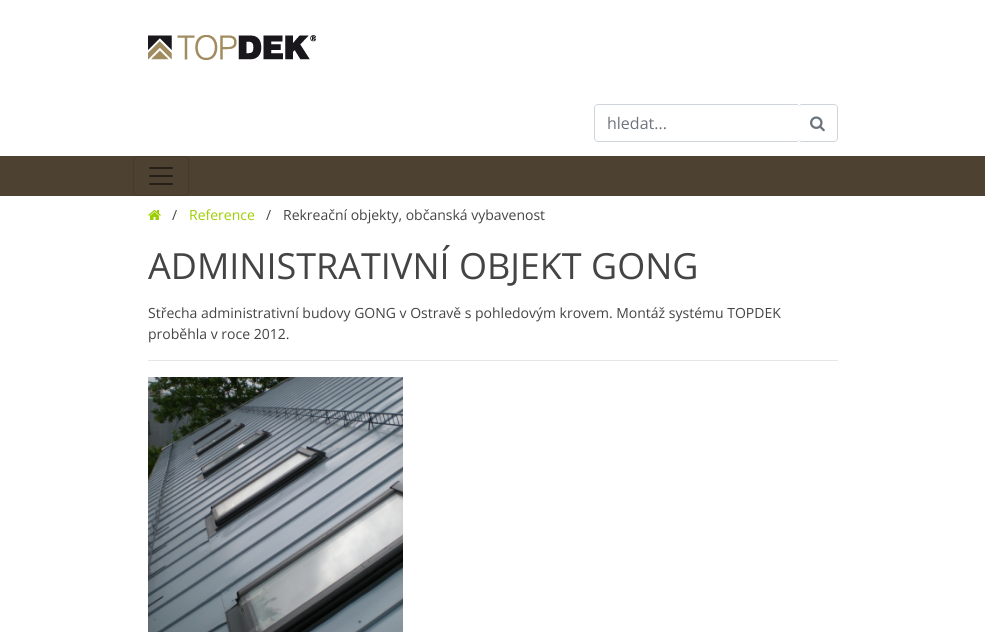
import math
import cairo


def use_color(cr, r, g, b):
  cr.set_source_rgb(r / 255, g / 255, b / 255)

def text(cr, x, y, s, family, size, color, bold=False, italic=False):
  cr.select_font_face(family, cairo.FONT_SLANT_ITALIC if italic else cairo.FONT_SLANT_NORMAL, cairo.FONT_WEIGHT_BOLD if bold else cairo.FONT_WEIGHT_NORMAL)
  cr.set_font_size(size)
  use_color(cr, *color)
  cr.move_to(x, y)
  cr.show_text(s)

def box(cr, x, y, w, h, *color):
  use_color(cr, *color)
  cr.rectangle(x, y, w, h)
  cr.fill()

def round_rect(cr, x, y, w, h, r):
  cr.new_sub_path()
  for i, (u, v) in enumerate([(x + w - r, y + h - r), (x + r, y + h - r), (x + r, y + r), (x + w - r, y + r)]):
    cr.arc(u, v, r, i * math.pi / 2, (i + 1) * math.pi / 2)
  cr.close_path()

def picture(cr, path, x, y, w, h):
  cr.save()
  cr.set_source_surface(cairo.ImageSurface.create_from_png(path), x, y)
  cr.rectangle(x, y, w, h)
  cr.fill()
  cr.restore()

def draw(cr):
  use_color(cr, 255, 255, 255)
  cr.paint()
  picture(cr, "img_01.png", 148, 35, 168, 25)
  use_color(cr, 206, 212, 218)
  cr.set_fill_rule(cairo.FILL_RULE_EVEN_ODD)
  cr.new_path()
  cr.move_to(598, 104)
  cr.line_to(798, 104)
  cr.line_to(798, 142)
  cr.line_to(598, 142)
  cr.curve_to(596, 142, 594, 140, 594, 138)
  cr.line_to(594, 108)
  cr.curve_to(594, 106, 596, 104, 598, 104)
  cr.close_path()
  cr.move_to(598, 105)
  cr.line_to(798, 105)
  cr.line_to(798, 141)
  cr.line_to(598, 141)
  cr.curve_to(596, 141, 595, 140, 595, 138)
  cr.line_to(595, 108)
  cr.curve_to(595, 106, 596, 105, 598, 105)
  cr.close_path()
  cr.fill()
  cr.new_path()
  cr.move_to(802, 104)
  cr.line_to(834, 104)
  cr.curve_to(836, 104, 838, 106, 838, 108)
  cr.line_to(838, 138)
  cr.curve_to(838, 140, 836, 142, 834, 142)
  cr.line_to(802, 142)
  cr.curve_to(800, 142, 798, 140, 798, 138)
  cr.line_to(798, 108)
  cr.curve_to(798, 106, 800, 104, 802, 104)
  cr.close_path()
  cr.move_to(802, 105)
  cr.line_to(834, 105)
  cr.curve_to(836, 105, 837, 106, 837, 108)
  cr.line_to(837, 138)
  cr.curve_to(837, 140, 836, 141, 834, 141)
  cr.line_to(802, 141)
  cr.curve_to(800, 141, 798, 140, 798, 138)
  cr.line_to(798, 108)
  cr.curve_to(798, 106, 800, 105, 802, 105)
  cr.close_path()
  cr.fill()
  picture(cr, "img_02.png", 810, 116, 15, 16)
  box(cr, 0, 156, 985, 40, 77, 65, 49)
  round_rect(cr, 133.5, 156.5, 55, 39, 3.5)
  use_color(cr, 69, 59, 44)
  cr.set_line_width(1)
  cr.stroke()
  picture(cr, "img_03.png", 149, 167, 24, 18)
  picture(cr, "img_04.png", 148, 210, 13, 10)
  box(cr, 148, 360, 690, 1, 230, 230, 230)
  picture(cr, "img_05.png", 148, 377, 255, 255)
  text(cr, 607, 129, "hledat...", "Open Sans", 16, (108, 117, 125))
  text(cr, 172, 220, "/", "Open Sans", 14, (68, 68, 68))
  text(cr, 189, 220, "Reference", "Open Sans", 14, (157, 206, 1))
  text(cr, 266, 220, "/", "Open Sans", 14, (68, 68, 68))
  text(cr, 283, 220, "Rekreační objekty, občanská vybavenost", "Open Sans", 14, (68, 68, 68))
  text(cr, 148, 279, "ADMINISTRATIVNÍ OBJEKT GONG", "Open Sans", 36, (68, 68, 68))
  text(cr, 148, 318, "Střecha administrativní budovy GONG v Ostravě s pohledovým krovem. Montáž systému TOPDEK", "Open Sans", 14, (68, 68, 68))
  text(cr, 148, 339, "proběhla v roce 2012.", "Open Sans", 14, (68, 68, 68))


surface = cairo.ImageSurface(cairo.FORMAT_RGB24, 985, 636)
cr = cairo.Context(surface)
options = cairo.FontOptions()
options.set_hint_metrics(cairo.HINT_METRICS_OFF)
options.set_hint_style(cairo.HINT_STYLE_NONE)
cr.set_font_options(options)
cr.set_miter_limit(4)
draw(cr)
surface.write_to_png("out.png")
